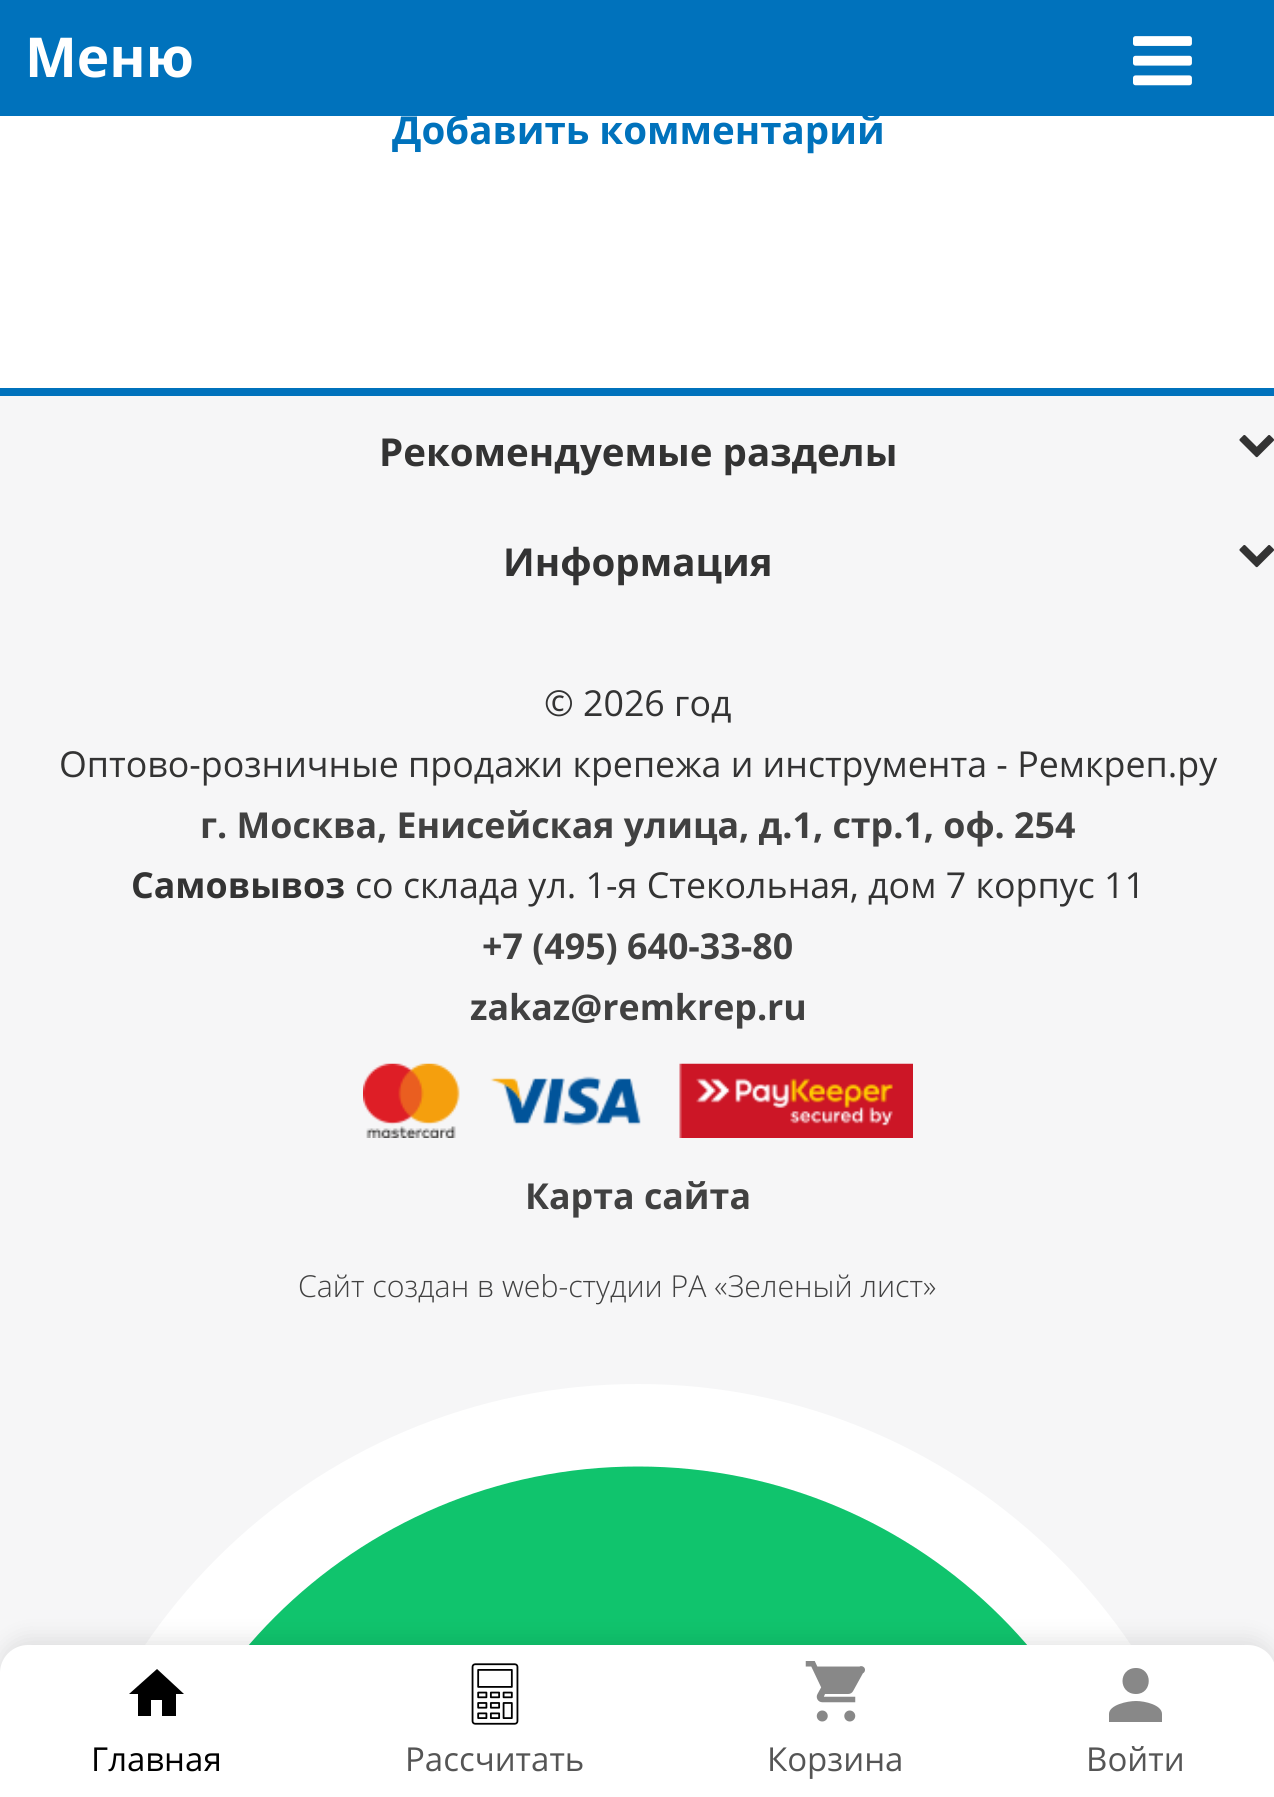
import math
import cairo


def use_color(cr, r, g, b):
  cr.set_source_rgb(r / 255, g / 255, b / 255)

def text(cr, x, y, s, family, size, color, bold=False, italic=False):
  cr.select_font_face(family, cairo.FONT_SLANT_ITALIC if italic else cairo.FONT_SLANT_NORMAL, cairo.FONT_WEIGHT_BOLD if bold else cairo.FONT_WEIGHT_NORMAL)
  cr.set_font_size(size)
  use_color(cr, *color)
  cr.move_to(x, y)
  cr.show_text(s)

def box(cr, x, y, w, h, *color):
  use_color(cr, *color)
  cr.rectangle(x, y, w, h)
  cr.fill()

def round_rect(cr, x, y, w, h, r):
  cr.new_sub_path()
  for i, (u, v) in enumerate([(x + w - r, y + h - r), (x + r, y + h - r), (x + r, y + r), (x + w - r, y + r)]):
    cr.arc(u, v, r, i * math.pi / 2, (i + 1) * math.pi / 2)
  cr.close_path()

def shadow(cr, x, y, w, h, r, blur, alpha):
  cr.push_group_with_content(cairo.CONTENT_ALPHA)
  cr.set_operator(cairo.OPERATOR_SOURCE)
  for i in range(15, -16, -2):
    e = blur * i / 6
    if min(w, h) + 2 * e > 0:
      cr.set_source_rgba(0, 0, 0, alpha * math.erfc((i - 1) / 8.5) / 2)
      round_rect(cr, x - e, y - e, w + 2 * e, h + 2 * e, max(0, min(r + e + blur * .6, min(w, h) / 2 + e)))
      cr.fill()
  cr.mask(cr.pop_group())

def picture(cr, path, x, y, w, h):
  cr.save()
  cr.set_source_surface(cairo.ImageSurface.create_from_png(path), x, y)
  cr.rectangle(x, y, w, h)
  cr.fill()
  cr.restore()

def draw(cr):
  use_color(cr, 255, 255, 255)
  cr.paint()
  box(cr, 0, 0, 1274, 116, 0, 114, 188)
  picture(cr, "img_01.png", 1133, 36, 59, 50)
  box(cr, 0, 396, 1274, 1277, 246, 246, 247)
  box(cr, 0, 388, 1274, 8, 0, 114, 188)
  picture(cr, "img_02.png", 1239, 435, 35, 23)
  picture(cr, "img_02.png", 1239, 545, 35, 23)
  picture(cr, "img_03.png", 363, 1063, 550, 75)
  picture(cr, "img_04.png", 145, 1384, 986, 261)
  use_color(cr, 0, 0, 0)
  shadow(cr, 0, 1639, 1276, 154, 28, 11, 0.1)
  use_color(cr, 255, 255, 255)
  cr.new_path()
  cr.move_to(28, 1645)
  cr.line_to(1248, 1645)
  cr.curve_to(1263.5, 1645, 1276, 1657.5, 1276, 1673)
  cr.line_to(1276, 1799)
  cr.line_to(0, 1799)
  cr.line_to(0, 1673)
  cr.curve_to(0, 1657.5, 12.5, 1645, 28, 1645)
  cr.close_path()
  cr.fill()
  use_color(cr, 0, 0, 0)
  cr.new_path()
  cr.move_to(151, 1716)
  cr.line_to(151, 1700)
  cr.line_to(162, 1700)
  cr.line_to(162, 1716)
  cr.line_to(176, 1716)
  cr.line_to(176, 1694)
  cr.line_to(184, 1694)
  cr.line_to(157, 1669)
  cr.line_to(129, 1694)
  cr.line_to(138, 1694)
  cr.line_to(138, 1716)
  cr.close_path()
  cr.fill()
  picture(cr, "img_05.png", 471, 1663, 48, 62)
  picture(cr, "img_06.png", 805, 1661, 60, 61)
  use_color(cr, 136, 136, 136)
  cr.new_path()
  cr.move_to(1136, 1694)
  cr.curve_to(1153, 1694, 1153, 1668, 1136, 1668)
  cr.curve_to(1118, 1668, 1118, 1694, 1136, 1694)
  cr.close_path()
  cr.move_to(1136, 1701)
  cr.curve_to(1127, 1701, 1109, 1705, 1109, 1714)
  cr.line_to(1109, 1722)
  cr.line_to(1162, 1722)
  cr.line_to(1162, 1714)
  cr.curve_to(1162, 1705, 1145, 1701, 1136, 1701)
  cr.close_path()
  cr.fill()
  text(cr, 25, 77, "Меню", "Open Sans", 55, (255, 255, 255), bold=True)
  text(cr, 392, 144, "Добавить комментарий", "Open Sans", 38.5, (0, 114, 188), bold=True)
  text(cr, 379, 466, "Рекомендуемые разделы", "Open Sans", 38.5, (51, 51, 51), bold=True)
  text(cr, 503, 576, "Информация", "Open Sans", 38.5, (51, 51, 51), bold=True)
  text(cr, 544, 716, "© 2026 год", "Open Sans", 35.75, (51, 51, 51))
  text(cr, 59, 777, "Оптово-розничные продажи крепежа и инструмента - Ремкреп.ру", "Open Sans", 35.75, (51, 51, 51))
  text(cr, 200, 838, "г. Москва, Енисейская улица, д.1, стр.1, оф. 254", "Open Sans", 35.75, (65, 65, 65), bold=True)
  text(cr, 131, 898, "Самовывоз", "Open Sans", 35.75, (51, 51, 51), bold=True)
  text(cr, 355, 898, "со склада ул. 1-я Стекольная, дом 7 корпус 11", "Open Sans", 35.75, (51, 51, 51))
  text(cr, 482, 959, "+7 (495) 640-33-80", "Open Sans", 35.75, (65, 65, 65), bold=True)
  text(cr, 470, 1020, "zakaz@remkrep.ru", "Open Sans", 35.75, (65, 65, 65), bold=True)
  text(cr, 525, 1209, "Карта сайта", "Open Sans", 35.75, (65, 65, 65), bold=True)
  text(cr, 298, 1297, "Сайт создан в web-студии РА «Зеленый лист»", "Open Sans Light", 30.25, (65, 65, 65))
  text(cr, 91, 1771, "Главная", "Open Sans", 33, (0, 0, 0))
  text(cr, 405, 1771, "Рассчитать", "Open Sans", 33, (85, 85, 85))
  text(cr, 767, 1771, "Корзина", "Open Sans", 33, (85, 85, 85))
  text(cr, 1086, 1771, "Войти", "Open Sans", 33, (85, 85, 85))


surface = cairo.ImageSurface(cairo.FORMAT_RGB24, 1274, 1797)
cr = cairo.Context(surface)
options = cairo.FontOptions()
options.set_hint_metrics(cairo.HINT_METRICS_OFF)
options.set_hint_style(cairo.HINT_STYLE_NONE)
cr.set_font_options(options)
cr.set_miter_limit(4)
draw(cr)
surface.write_to_png("out.png")
